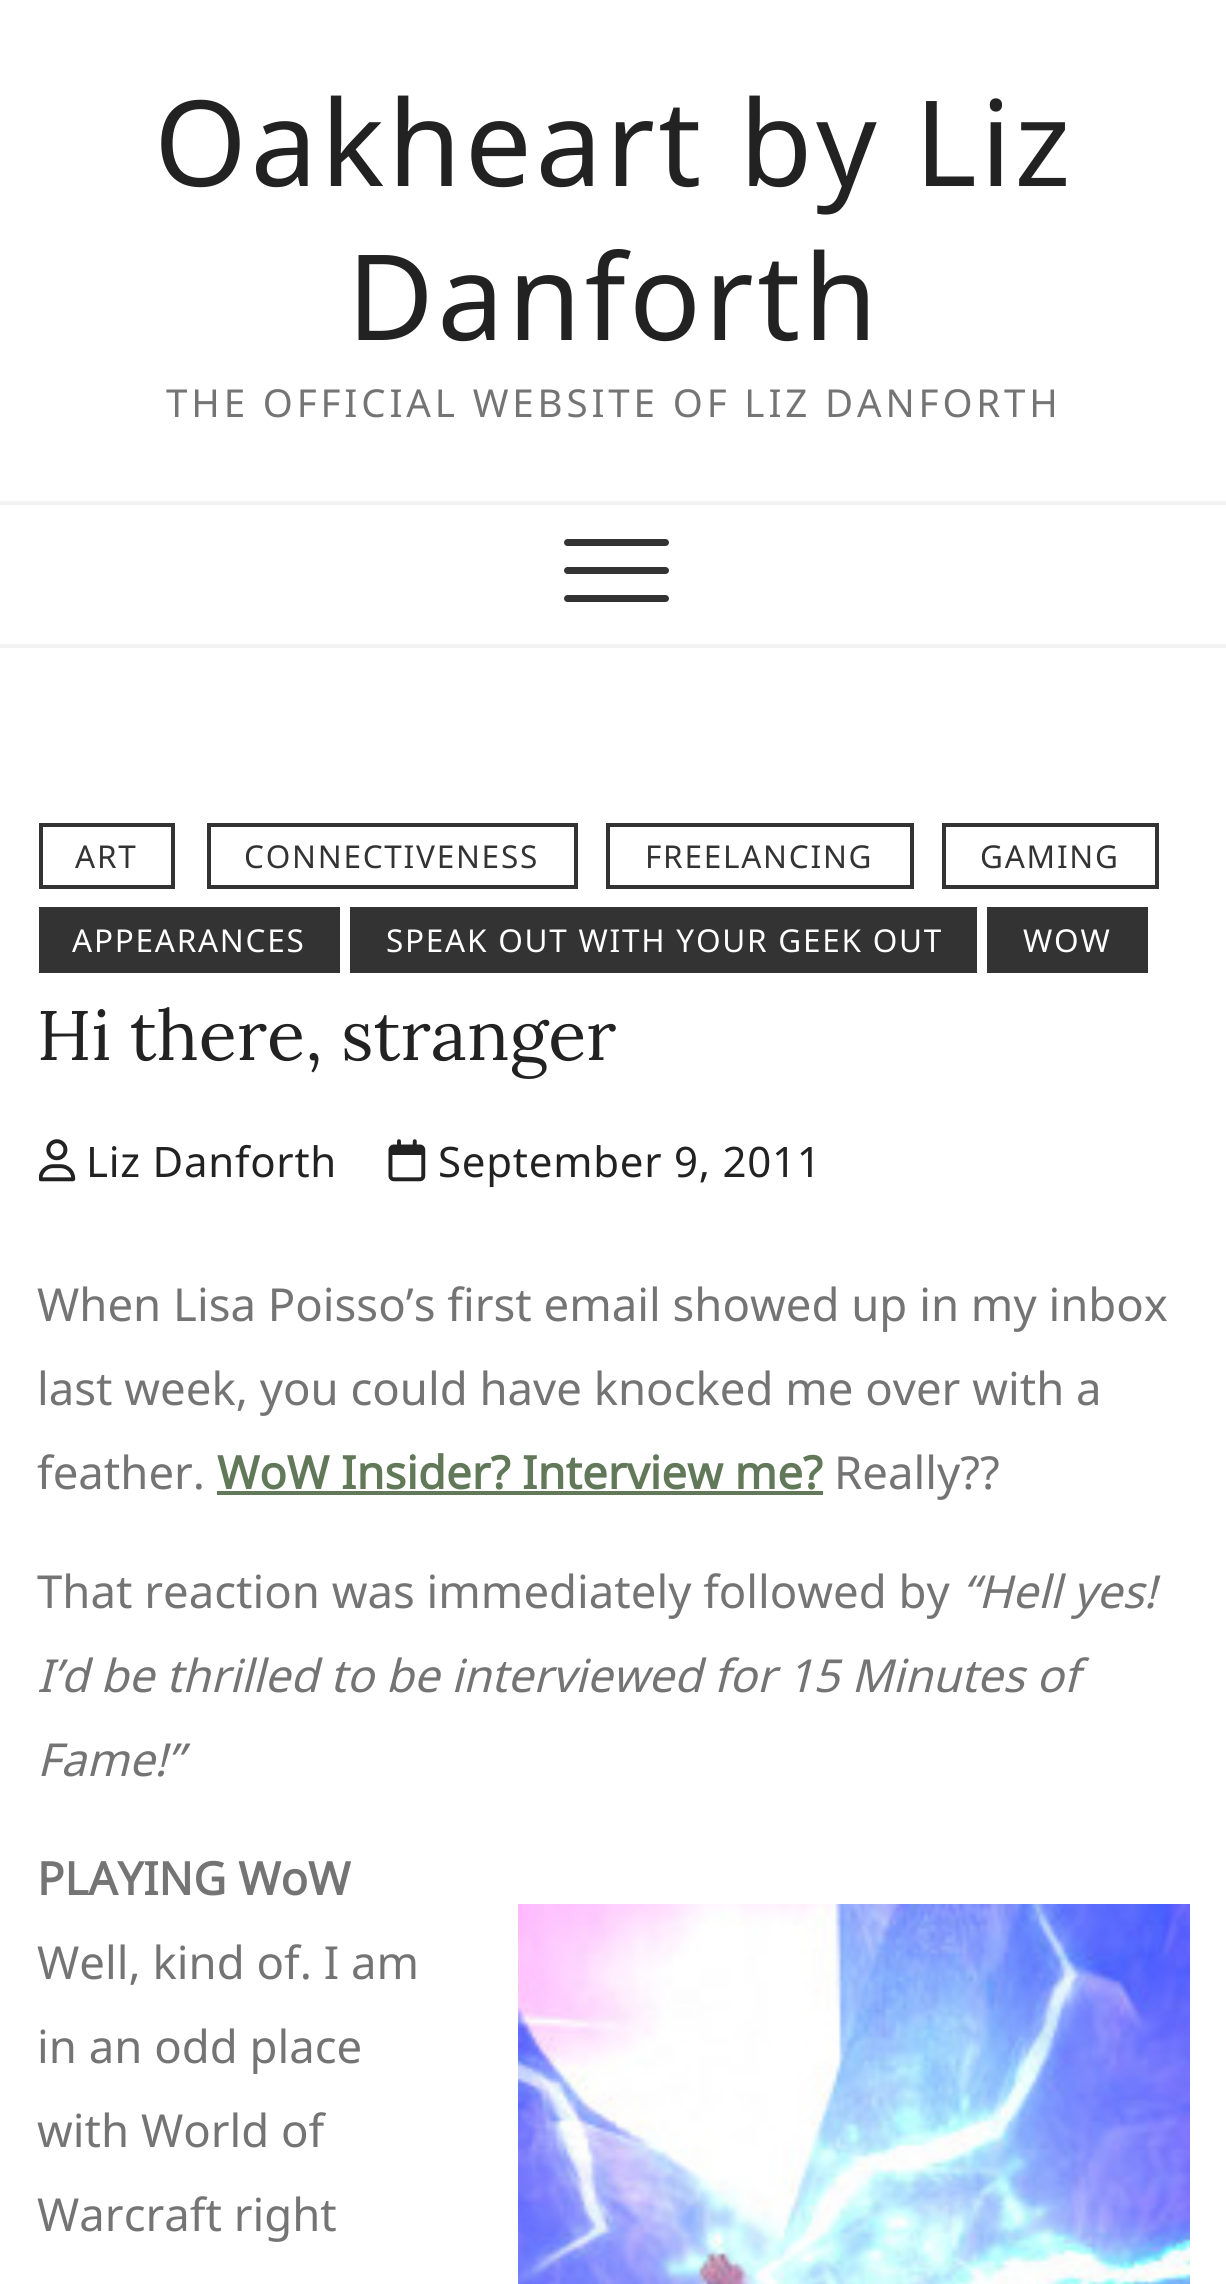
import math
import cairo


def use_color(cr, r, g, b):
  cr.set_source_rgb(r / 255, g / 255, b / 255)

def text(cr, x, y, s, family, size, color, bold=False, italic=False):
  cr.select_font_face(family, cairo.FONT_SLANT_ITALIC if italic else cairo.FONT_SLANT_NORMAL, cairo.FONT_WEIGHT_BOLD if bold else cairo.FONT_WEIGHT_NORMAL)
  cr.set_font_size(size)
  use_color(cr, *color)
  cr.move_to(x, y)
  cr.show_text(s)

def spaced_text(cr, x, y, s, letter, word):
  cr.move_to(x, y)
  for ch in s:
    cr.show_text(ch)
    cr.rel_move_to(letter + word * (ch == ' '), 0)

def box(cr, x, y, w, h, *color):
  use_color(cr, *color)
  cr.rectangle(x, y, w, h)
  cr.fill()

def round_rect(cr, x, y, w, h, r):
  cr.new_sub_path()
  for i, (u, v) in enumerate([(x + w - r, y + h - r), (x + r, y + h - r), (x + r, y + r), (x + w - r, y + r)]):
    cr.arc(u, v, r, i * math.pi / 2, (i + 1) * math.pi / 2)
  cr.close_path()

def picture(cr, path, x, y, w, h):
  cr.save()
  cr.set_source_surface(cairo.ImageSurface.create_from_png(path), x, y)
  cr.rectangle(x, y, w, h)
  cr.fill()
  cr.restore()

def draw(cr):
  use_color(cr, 255, 255, 255)
  cr.paint()
  box(cr, 0, 501, 1226, 4, 242, 242, 242)
  box(cr, 0, 644, 1226, 4, 242, 242, 242)
  use_color(cr, 51, 51, 51)
  round_rect(cr, 564, 567, 105, 7, 3.5)
  cr.fill()
  round_rect(cr, 564, 539, 105, 7, 3.5)
  cr.fill()
  round_rect(cr, 564, 595, 105, 7, 3.5)
  cr.fill()
  cr.rectangle(41, 825, 132, 62)
  cr.set_line_width(4)
  cr.stroke()
  cr.rectangle(209, 825, 367, 62)
  cr.stroke()
  cr.rectangle(608, 825, 304, 62)
  cr.stroke()
  cr.rectangle(944, 825, 213, 62)
  cr.stroke()
  box(cr, 39, 907, 301, 66, 51, 51, 51)
  box(cr, 350, 907, 627, 66, 51, 51, 51)
  box(cr, 987, 907, 161, 66, 51, 51, 51)
  picture(cr, "img_01.png", 39, 1139, 37, 43)
  picture(cr, "img_02.png", 388, 1139, 38, 43)
  box(cr, 217, 1491, 606, 4, 97, 121, 88)
  picture(cr, "img_03.png", 518, 1904, 672, 380)
  cr.select_font_face("Noto Sans")
  cr.set_font_size(119)
  use_color(cr, 34, 34, 34)
  spaced_text(cr, 154, 186, "Oakheart by Liz", 3.5, 0)
  spaced_text(cr, 347, 340, "Danforth", 3.5, 0)
  cr.set_font_size(38.5)
  use_color(cr, 116, 116, 116)
  spaced_text(cr, 166, 417, "THE OFFICIAL WEBSITE OF LIZ DANFORTH", 3.85, 0)
  cr.set_font_size(31.5)
  use_color(cr, 51, 51, 51)
  spaced_text(cr, 75, 868, "ART", 1.75, 0)
  spaced_text(cr, 244, 868, "CONNECTIVENESS", 1.75, 0)
  spaced_text(cr, 645, 868, "FREELANCING", 1.75, 0)
  spaced_text(cr, 980, 868, "GAMING", 1.75, 0)
  use_color(cr, 255, 255, 255)
  spaced_text(cr, 72, 952, "APPEARANCES", 1.75, 0)
  spaced_text(cr, 386, 952, "SPEAK OUT WITH YOUR GEEK OUT", 1.75, 0)
  spaced_text(cr, 1023, 952, "WOW", 1.75, 0)
  text(cr, 37, 1060, "Hi there, stranger", "Lora", 70, (34, 34, 34))
  cr.select_font_face("Noto Sans")
  cr.set_font_size(42)
  spaced_text(cr, 86, 1177, "Liz Danforth", 0.75, 0)
  spaced_text(cr, 438, 1177, "September 9, 2011", 0.75, 0)
  text(cr, 37, 1321, "When Lisa Poisso’s first email showed up in my inbox", "Noto Sans", 45.5, (116, 116, 116))
  text(cr, 37, 1405, "last week, you could have knocked me over with a", "Noto Sans", 45.5, (116, 116, 116))
  text(cr, 37, 1489, "feather.", "Noto Sans", 45.5, (116, 116, 116))
  text(cr, 217, 1489, "WoW Insider? Interview me?", "Noto Sans", 45.5, (97, 121, 88), bold=True)
  text(cr, 834, 1489, "Really??", "Noto Sans", 45.5, (116, 116, 116))
  text(cr, 37, 1608, "That reaction was immediately followed by", "Noto Sans", 45.5, (116, 116, 116))
  text(cr, 962, 1608, "“Hell yes!", "Noto Sans", 45.5, (116, 116, 116), italic=True)
  text(cr, 37, 1692, "I’d be thrilled to be interviewed for 15 Minutes of", "Noto Sans", 45.5, (116, 116, 116), italic=True)
  text(cr, 37, 1776, "Fame!”", "Noto Sans", 45.5, (116, 116, 116), italic=True)
  text(cr, 37, 1895, "PLAYING WoW", "Noto Sans", 45.5, (116, 116, 116), bold=True)
  text(cr, 37, 1979, "Well, kind of. I am", "Noto Sans", 45.5, (116, 116, 116))
  text(cr, 37, 2063, "in an odd place", "Noto Sans", 45.5, (116, 116, 116))
  text(cr, 37, 2147, "with World of", "Noto Sans", 45.5, (116, 116, 116))
  text(cr, 37, 2231, "Warcraft right", "Noto Sans", 45.5, (116, 116, 116))


surface = cairo.ImageSurface(cairo.FORMAT_RGB24, 1226, 2284)
cr = cairo.Context(surface)
options = cairo.FontOptions()
options.set_hint_metrics(cairo.HINT_METRICS_OFF)
options.set_hint_style(cairo.HINT_STYLE_NONE)
cr.set_font_options(options)
cr.set_miter_limit(4)
draw(cr)
surface.write_to_png("out.png")
